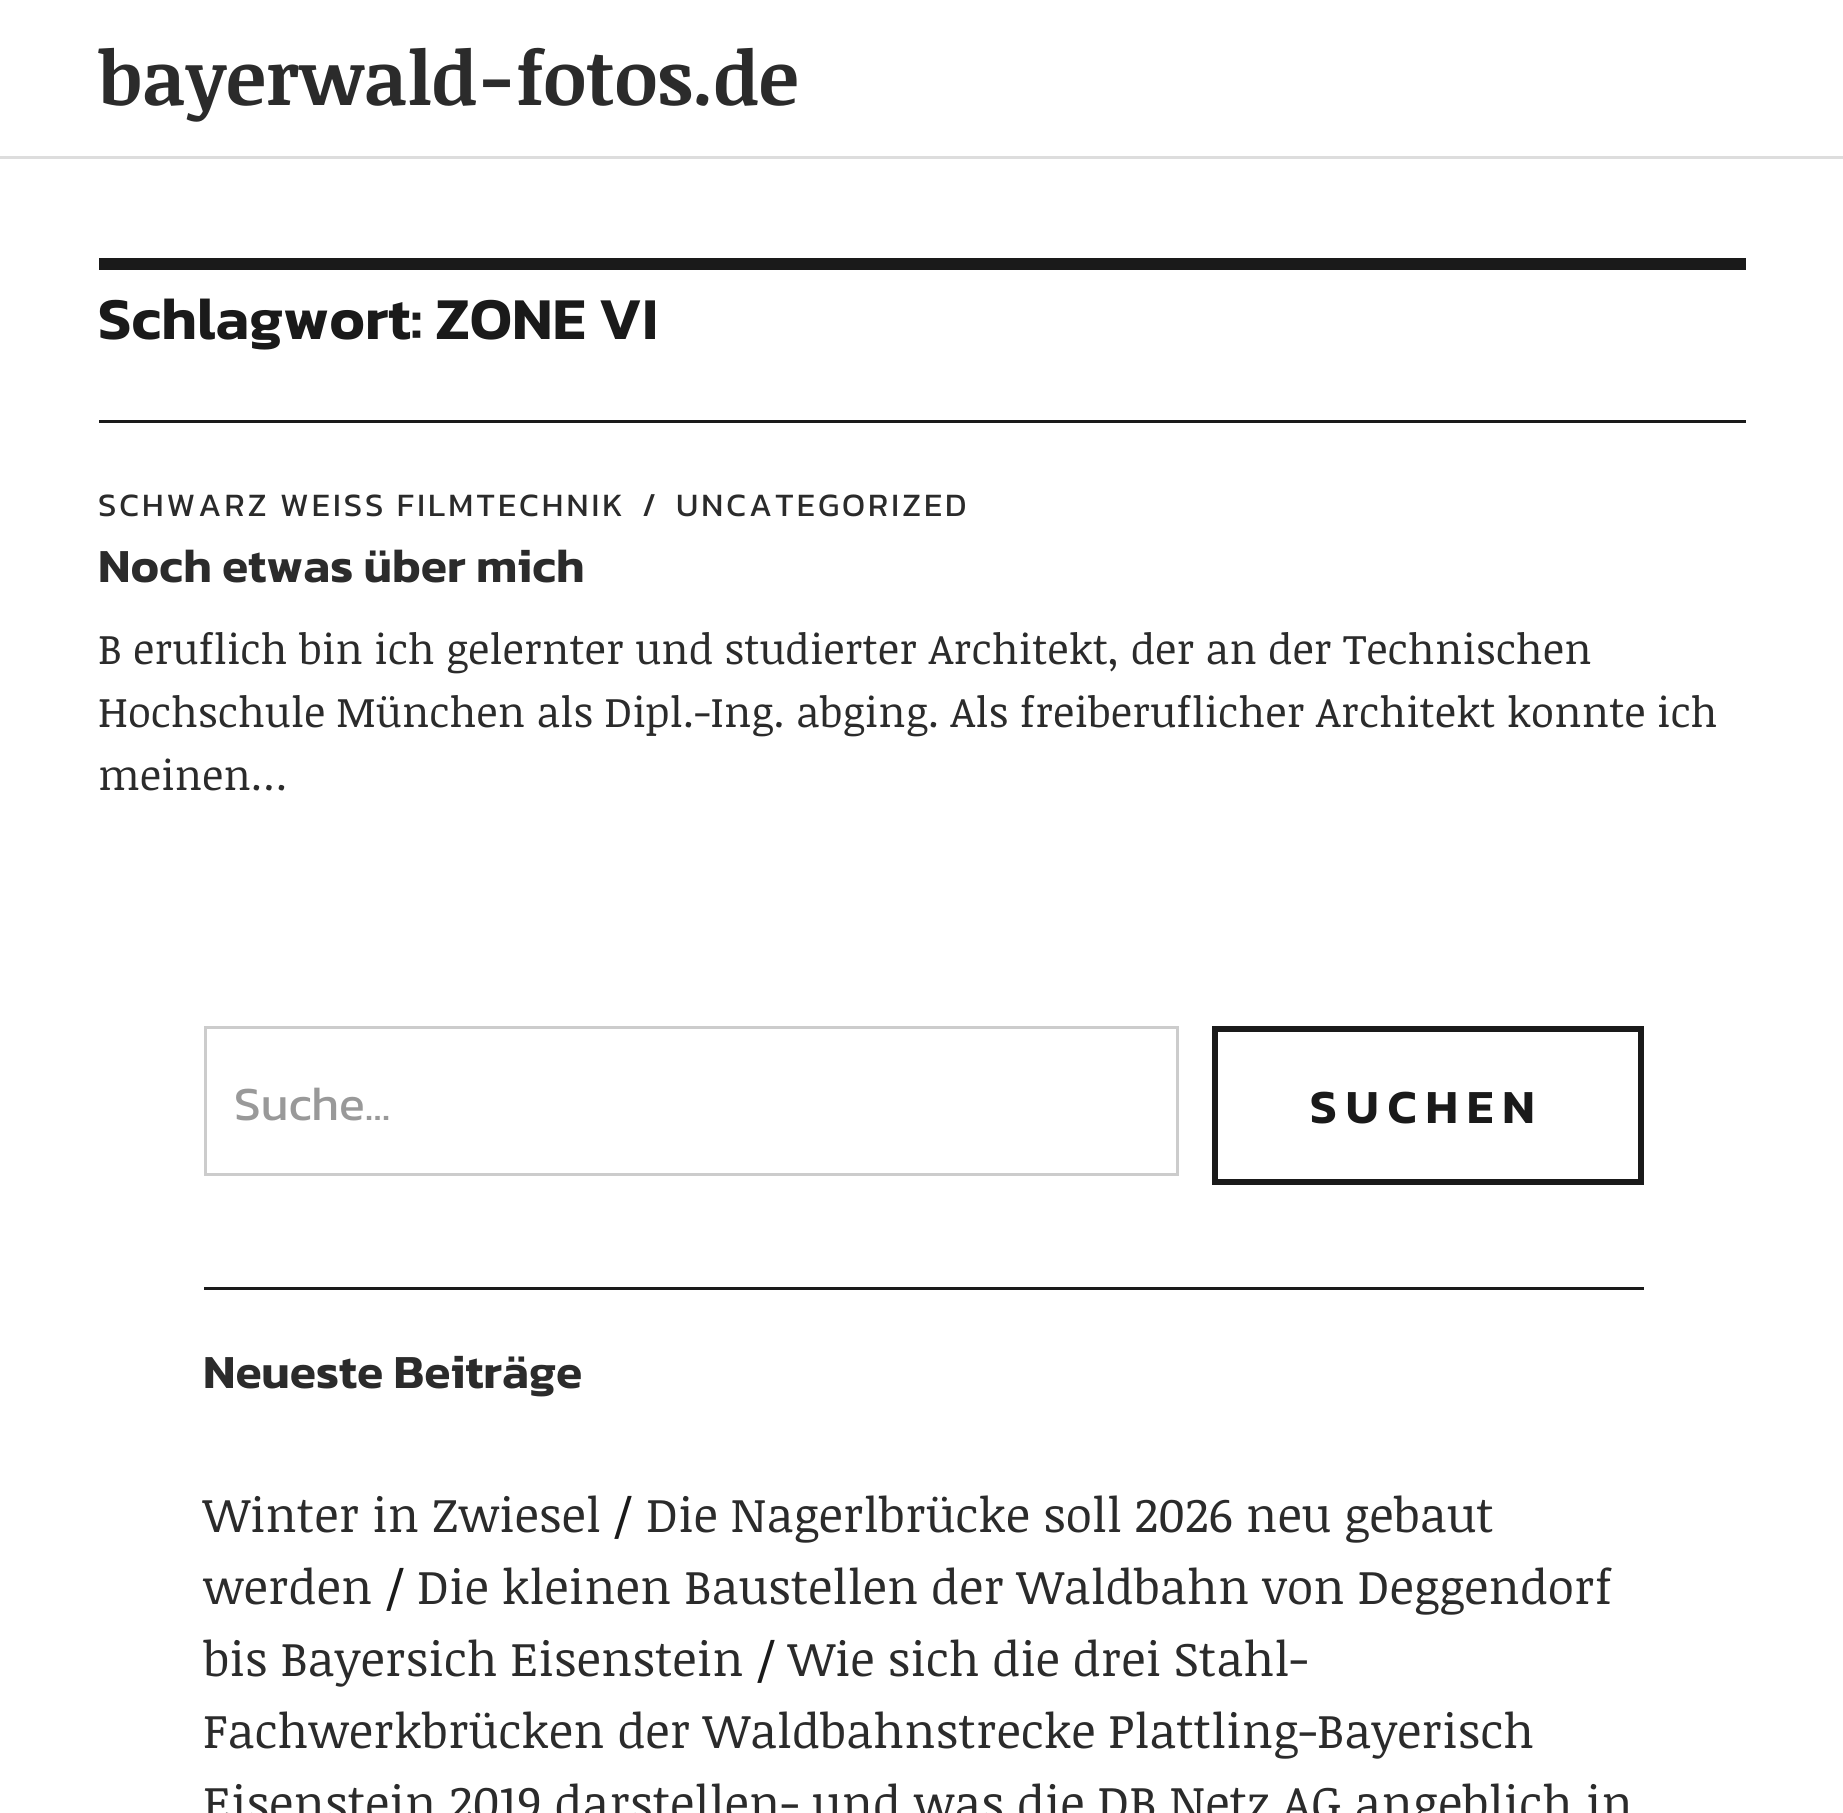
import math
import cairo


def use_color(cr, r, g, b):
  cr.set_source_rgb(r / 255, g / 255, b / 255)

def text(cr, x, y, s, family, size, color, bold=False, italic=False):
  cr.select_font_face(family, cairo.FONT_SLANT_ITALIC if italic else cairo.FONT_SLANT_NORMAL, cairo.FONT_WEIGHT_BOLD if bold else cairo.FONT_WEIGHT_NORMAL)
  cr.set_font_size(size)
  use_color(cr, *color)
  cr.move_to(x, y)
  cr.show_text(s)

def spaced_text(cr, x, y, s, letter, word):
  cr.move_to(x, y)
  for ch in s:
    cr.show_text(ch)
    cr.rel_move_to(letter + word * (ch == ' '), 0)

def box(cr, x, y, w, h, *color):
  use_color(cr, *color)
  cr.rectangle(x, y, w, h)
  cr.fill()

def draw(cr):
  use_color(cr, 255, 255, 255)
  cr.paint()
  box(cr, 0, 156, 1843, 3, 221, 221, 221)
  box(cr, 99, 258, 1647, 12, 26, 26, 26)
  box(cr, 99, 420, 1647, 3, 26, 26, 26)
  cr.rectangle(205.5, 1027.5, 972, 147)
  use_color(cr, 204, 204, 204)
  cr.set_line_width(3)
  cr.stroke()
  cr.rectangle(1215, 1029, 426, 153)
  use_color(cr, 26, 26, 26)
  cr.set_line_width(6)
  cr.stroke()
  box(cr, 204, 1287, 1440, 3, 26, 26, 26)
  text(cr, 98, 105, "bayerwald-fotos.de", "Noticia Text", 75, (43, 43, 43), bold=True)
  text(cr, 98, 339, "Schlagwort: ZONE VI", "Kanit SemiBold", 60, (26, 26, 26))
  cr.select_font_face("Kanit")
  cr.set_font_size(33)
  use_color(cr, 43, 43, 43)
  spaced_text(cr, 98, 516, "SCHWARZ WEISS FILMTECHNIK", 3, 0)
  spaced_text(cr, 642, 516, "/", 3, 0)
  spaced_text(cr, 676, 516, "UNCATEGORIZED", 3, 0)
  text(cr, 98, 582, "Noch etwas über mich", "Kanit SemiBold", 48, (43, 43, 43))
  text(cr, 98, 664, "B eruflich bin ich gelernter und studierter Architekt, der an der Technischen", "Noticia Text", 42, (43, 43, 43))
  text(cr, 98, 727, "Hochschule München als Dipl.-Ing. abging. Als freiberuflicher Architekt konnte ich", "Noticia Text", 42, (43, 43, 43))
  text(cr, 98, 790, "meinen…", "Noticia Text", 42, (43, 43, 43))
  text(cr, 234, 1120, "Suche...", "Kanit", 48, (153, 153, 153))
  cr.select_font_face("Kanit SemiBold")
  use_color(cr, 26, 26, 26)
  spaced_text(cr, 1310, 1123, "SUCHEN", 9, 0)
  text(cr, 203, 1388, "Neueste Beiträge", "Kanit SemiBold", 48, (43, 43, 43))
  text(cr, 203, 1532, "Winter in Zwiesel", "Noticia Text", 48, (43, 43, 43))
  text(cr, 613, 1532, "/", "Noticia Text", 48, (26, 26, 26))
  text(cr, 646, 1532, "Die Nagerlbrücke soll 2026 neu gebaut", "Noticia Text", 48, (43, 43, 43))
  text(cr, 203, 1604, "werden", "Noticia Text", 48, (43, 43, 43))
  text(cr, 385, 1604, "/", "Noticia Text", 48, (26, 26, 26))
  text(cr, 417, 1604, "Die kleinen Baustellen der Waldbahn von Deggendorf", "Noticia Text", 48, (43, 43, 43))
  text(cr, 203, 1676, "bis Bayersich Eisenstein", "Noticia Text", 48, (43, 43, 43))
  text(cr, 756, 1676, "/", "Noticia Text", 48, (26, 26, 26))
  text(cr, 788, 1676, "Wie sich die drei Stahl-", "Noticia Text", 48, (43, 43, 43))
  text(cr, 203, 1748, "Fachwerkbrücken der Waldbahnstrecke Plattling-Bayerisch", "Noticia Text", 48, (43, 43, 43))
  text(cr, 203, 1820, "Eisenstein 2019 darstellen- und was die DB Netz AG angeblich in", "Noticia Text", 48, (43, 43, 43))


surface = cairo.ImageSurface(cairo.FORMAT_RGB24, 1843, 1813)
cr = cairo.Context(surface)
options = cairo.FontOptions()
options.set_hint_metrics(cairo.HINT_METRICS_OFF)
options.set_hint_style(cairo.HINT_STYLE_NONE)
cr.set_font_options(options)
cr.set_miter_limit(4)
draw(cr)
surface.write_to_png("out.png")
